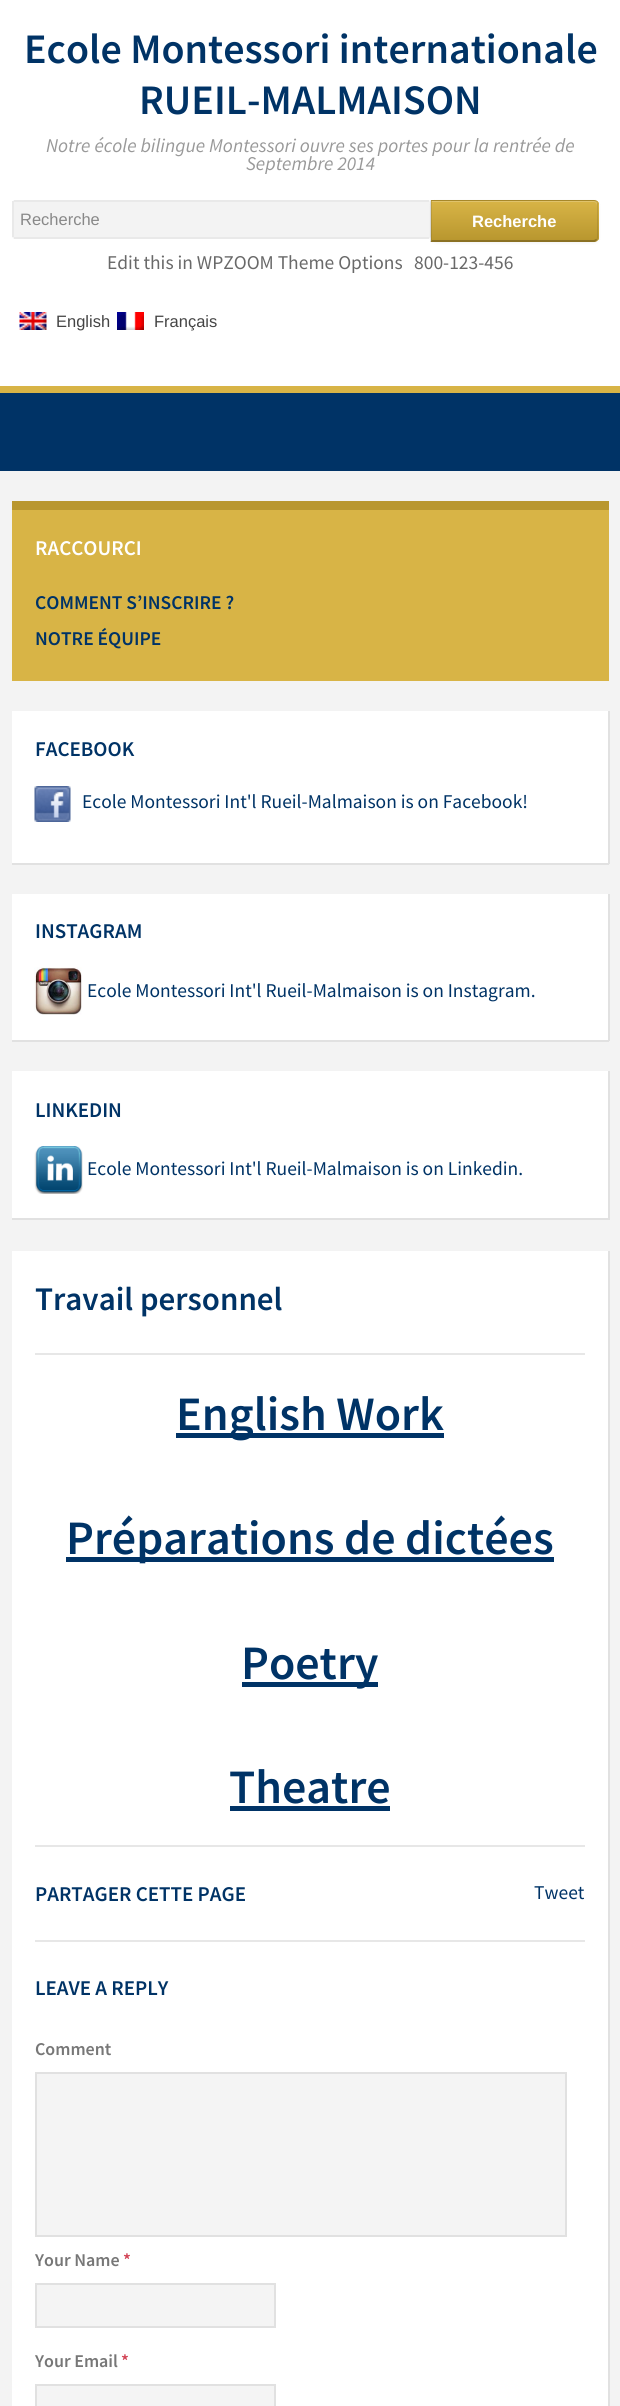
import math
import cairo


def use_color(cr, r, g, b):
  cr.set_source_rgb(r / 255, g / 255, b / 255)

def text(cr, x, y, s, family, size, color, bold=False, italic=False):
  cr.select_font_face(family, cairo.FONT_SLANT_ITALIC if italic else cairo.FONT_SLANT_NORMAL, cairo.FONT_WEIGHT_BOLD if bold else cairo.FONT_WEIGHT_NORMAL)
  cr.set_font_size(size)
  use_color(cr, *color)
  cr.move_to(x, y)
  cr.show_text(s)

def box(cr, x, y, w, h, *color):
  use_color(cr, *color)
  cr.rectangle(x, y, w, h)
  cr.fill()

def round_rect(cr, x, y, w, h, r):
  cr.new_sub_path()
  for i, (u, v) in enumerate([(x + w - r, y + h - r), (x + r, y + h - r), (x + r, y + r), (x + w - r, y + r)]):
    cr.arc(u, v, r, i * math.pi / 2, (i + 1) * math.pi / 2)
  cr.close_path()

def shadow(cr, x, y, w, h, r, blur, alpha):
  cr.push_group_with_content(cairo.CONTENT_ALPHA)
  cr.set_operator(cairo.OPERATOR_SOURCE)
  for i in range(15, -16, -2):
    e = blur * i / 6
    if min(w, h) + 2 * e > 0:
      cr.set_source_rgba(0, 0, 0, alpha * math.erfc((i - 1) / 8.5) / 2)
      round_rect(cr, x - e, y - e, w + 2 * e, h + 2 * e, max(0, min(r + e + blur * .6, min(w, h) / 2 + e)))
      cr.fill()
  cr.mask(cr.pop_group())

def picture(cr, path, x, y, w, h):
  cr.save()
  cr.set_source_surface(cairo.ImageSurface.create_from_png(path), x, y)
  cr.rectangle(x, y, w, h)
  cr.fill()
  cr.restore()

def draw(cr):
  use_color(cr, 243, 243, 243)
  cr.paint()
  box(cr, 0, 0, 620, 386, 255, 255, 255)
  use_color(cr, 243, 243, 243)
  round_rect(cr, 12, 200, 419, 39, 3)
  cr.fill()
  box(cr, 14, 200, 415, 2, 233, 233, 233)
  box(cr, 14, 237, 415, 2, 233, 233, 233)
  box(cr, 12, 201, 2, 36, 233, 233, 233)
  use_color(cr, 0, 0, 0)
  shadow(cr, 431, 201, 168, 42, 5, 1.5, 0.05)
  use_color(cr, 185, 151, 47)
  cr.new_path()
  cr.move_to(431, 200)
  cr.line_to(594, 200)
  cr.curve_to(597, 200, 599, 202, 599, 205)
  cr.line_to(599, 237)
  cr.curve_to(599, 240, 597, 242, 594, 242)
  cr.line_to(431, 242)
  cr.close_path()
  cr.fill()
  cr.save()
  cr.new_path()
  cr.move_to(431, 200)
  cr.line_to(594, 200)
  cr.curve_to(597, 200, 599, 202, 599, 205)
  cr.line_to(599, 237)
  cr.curve_to(599, 240, 597, 242, 594, 242)
  cr.line_to(431, 242)
  cr.close_path()
  cr.clip()
  gradient = cairo.LinearGradient(515, 201, 515, 240)
  gradient.add_color_stop_rgba(0, 0.847, 0.706, 0.275, 1)
  gradient.add_color_stop_rgba(1, 0.725, 0.592, 0.184, 1)
  cr.set_source(gradient)
  cr.rectangle(431, 201, 168, 39)
  cr.fill()
  cr.restore()
  use_color(cr, 224, 195, 107)
  cr.new_path()
  cr.move_to(432, 202)
  cr.line_to(594, 202)
  cr.curve_to(596, 202, 597, 204, 597, 206)
  cr.line_to(597, 204)
  cr.curve_to(597, 202, 596, 201, 594, 201)
  cr.line_to(432, 201)
  cr.close_path()
  cr.fill()
  cr.set_source_rgba(0, 0, 0, 0.1)
  cr.new_path()
  cr.move_to(432, 201)
  cr.line_to(594, 201)
  cr.line_to(596, 202)
  cr.line_to(597, 201)
  cr.line_to(594, 200)
  cr.line_to(431, 200)
  cr.close_path()
  cr.fill()
  cr.new_path()
  cr.move_to(597, 201)
  cr.curve_to(597.5, 202, 598, 203, 598, 204)
  cr.line_to(598, 237)
  cr.curve_to(598, 238, 597.5, 239, 597, 240)
  cr.line_to(596, 239)
  cr.curve_to(597, 239, 597, 238, 597, 237)
  cr.line_to(597, 204)
  cr.curve_to(597, 203, 597, 202, 596, 202)
  cr.close_path()
  cr.fill()
  cr.set_source_rgba(0, 0, 0, 0.25)
  cr.new_path()
  cr.move_to(597, 240)
  cr.line_to(595, 242)
  cr.line_to(430, 242)
  cr.line_to(432, 240)
  cr.line_to(594, 240)
  cr.line_to(596, 239)
  cr.close_path()
  cr.fill()
  cr.set_source_rgba(0, 0, 0, 0.1)
  cr.new_path()
  cr.move_to(432, 201)
  cr.line_to(430, 200)
  cr.line_to(430, 242)
  cr.line_to(432, 240)
  cr.close_path()
  cr.fill()
  picture(cr, "img_01.png", 19, 312, 28, 18)
  picture(cr, "img_02.png", 117, 312, 27, 18)
  box(cr, 0, 393, 620, 78, 0, 51, 102)
  box(cr, 0, 386, 620, 7, 216, 180, 70)
  box(cr, 12, 510, 597, 171, 216, 180, 70)
  box(cr, 12, 501, 597, 9, 185, 151, 47)
  box(cr, 12, 711, 596, 152, 255, 255, 255)
  box(cr, 608, 711, 2, 153, 225, 225, 225)
  box(cr, 12, 863, 597, 2, 225, 225, 225)
  picture(cr, "img_03.png", 34, 786, 37, 36)
  box(cr, 12, 894, 596, 146, 255, 255, 255)
  box(cr, 608, 894, 2, 147, 225, 225, 225)
  box(cr, 12, 1040, 597, 2, 225, 225, 225)
  picture(cr, "img_04.png", 34, 967, 48, 48)
  box(cr, 12, 1071, 596, 147, 255, 255, 255)
  box(cr, 608, 1071, 2, 149, 225, 225, 225)
  box(cr, 12, 1218, 597, 2, 225, 225, 225)
  picture(cr, "img_05.png", 34, 1146, 49, 48)
  box(cr, 12, 1251, 596, 1155, 255, 255, 255)
  box(cr, 608, 1251, 2, 1155, 225, 225, 225)
  box(cr, 35, 1353, 550, 2, 231, 231, 231)
  box(cr, 176, 1433, 268, 5, 0, 51, 102)
  box(cr, 66, 1557, 488, 5, 0, 51, 102)
  box(cr, 242, 1682, 136, 5, 0, 51, 102)
  box(cr, 230, 1806, 160, 5, 0, 51, 102)
  box(cr, 35, 1845, 550, 2, 231, 231, 231)
  box(cr, 35, 1940, 550, 2, 231, 231, 231)
  use_color(cr, 244, 244, 244)
  cr.rectangle(36, 2073, 530, 163)
  cr.fill_preserve()
  use_color(cr, 225, 225, 225)
  cr.stroke()
  use_color(cr, 244, 244, 244)
  cr.rectangle(36, 2284, 239, 43)
  cr.fill_preserve()
  use_color(cr, 225, 225, 225)
  cr.stroke()
  use_color(cr, 244, 244, 244)
  cr.rectangle(36, 2385, 239, 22)
  cr.fill_preserve()
  use_color(cr, 225, 225, 225)
  cr.stroke()
  text(cr, 24, 63, "Ecole Montessori internationale", "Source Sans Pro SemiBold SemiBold", 42, (0, 51, 102))
  text(cr, 139, 114, "RUEIL-MALMAISON", "Source Sans Pro SemiBold SemiBold", 42, (0, 51, 102))
  text(cr, 46, 152, "Notre école bilingue Montessori ouvre ses portes pour la rentrée de", "Source Sans Pro", 19.5, (153, 153, 153), italic=True)
  text(cr, 246, 170, "Septembre 2014", "Source Sans Pro", 19.5, (153, 153, 153), italic=True)
  text(cr, 20, 225, "Recherche", "Liberation Sans", 16.5, (136, 136, 136))
  text(cr, 472, 227, "Recherche", "Liberation Sans", 16.5, (255, 255, 255), bold=True)
  text(cr, 107, 269, "Edit this in WPZOOM Theme Options", "Source Sans Pro", 19.5, (105, 105, 105))
  text(cr, 414, 269, "800-123-456", "Source Sans Pro", 19.5, (105, 105, 105))
  text(cr, 56, 327, "English", "Liberation Sans", 16.5, (68, 68, 68))
  text(cr, 154, 327, "Français", "Liberation Sans", 16.5, (68, 68, 68))
  text(cr, 35, 555, "RACCOURCI", "Source Sans Pro SemiBold SemiBold", 21, (255, 255, 255))
  text(cr, 35, 609, "COMMENT S’INSCRIRE ?", "Source Sans Pro SemiBold SemiBold", 19.5, (0, 51, 102))
  text(cr, 35, 645, "NOTRE ÉQUIPE", "Source Sans Pro SemiBold SemiBold", 19.5, (0, 51, 102))
  text(cr, 35, 756, "FACEBOOK", "Source Sans Pro SemiBold SemiBold", 21, (0, 51, 102))
  text(cr, 82, 808, "Ecole Montessori Int'l Rueil-Malmaison is on Facebook!", "Source Sans Pro", 19.5, (0, 51, 102))
  text(cr, 35, 938, "INSTAGRAM", "Source Sans Pro SemiBold SemiBold", 21, (0, 51, 102))
  text(cr, 87, 997, "Ecole Montessori Int'l Rueil-Malmaison is on Instagram.", "Source Sans Pro", 19.5, (0, 51, 102))
  text(cr, 35, 1117, "LINKEDIN", "Source Sans Pro SemiBold SemiBold", 21, (0, 51, 102))
  text(cr, 87, 1175, "Ecole Montessori Int'l Rueil-Malmaison is on Linkedin.", "Source Sans Pro", 19.5, (0, 51, 102))
  text(cr, 35, 1310, "Travail personnel", "Source Sans Pro SemiBold SemiBold", 33, (0, 51, 102))
  text(cr, 176, 1430, "English Work", "Source Sans Pro SemiBold SemiBold", 48, (0, 51, 102))
  text(cr, 66, 1554, "Préparations de dictées", "Source Sans Pro SemiBold SemiBold", 48, (0, 51, 102))
  text(cr, 241, 1679, "Poetry", "Source Sans Pro SemiBold SemiBold", 48, (0, 51, 102))
  text(cr, 229, 1803, "Theatre", "Source Sans Pro SemiBold SemiBold", 48, (0, 51, 102))
  text(cr, 35, 1901, "PARTAGER CETTE PAGE", "Source Sans Pro SemiBold SemiBold", 21, (0, 51, 102))
  text(cr, 534, 1899, "Tweet", "Source Sans Pro", 19.5, (0, 51, 102))
  text(cr, 35, 1995, "LEAVE A REPLY", "Source Sans Pro SemiBold SemiBold", 21, (0, 51, 102))
  text(cr, 35, 2055, "Comment", "Source Sans Pro SemiBold SemiBold", 18, (119, 119, 119))
  text(cr, 35, 2266, "Your Name", "Source Sans Pro SemiBold SemiBold", 18, (119, 119, 119))
  text(cr, 123, 2266, "*", "Source Sans Pro SemiBold SemiBold", 18, (210, 67, 85))
  text(cr, 35, 2367, "Your Email", "Source Sans Pro SemiBold SemiBold", 18, (119, 119, 119))
  text(cr, 121, 2367, "*", "Source Sans Pro SemiBold SemiBold", 18, (210, 67, 85))


surface = cairo.ImageSurface(cairo.FORMAT_RGB24, 620, 2406)
cr = cairo.Context(surface)
options = cairo.FontOptions()
options.set_hint_metrics(cairo.HINT_METRICS_OFF)
options.set_hint_style(cairo.HINT_STYLE_NONE)
cr.set_font_options(options)
cr.set_miter_limit(4)
draw(cr)
surface.write_to_png("out.png")
